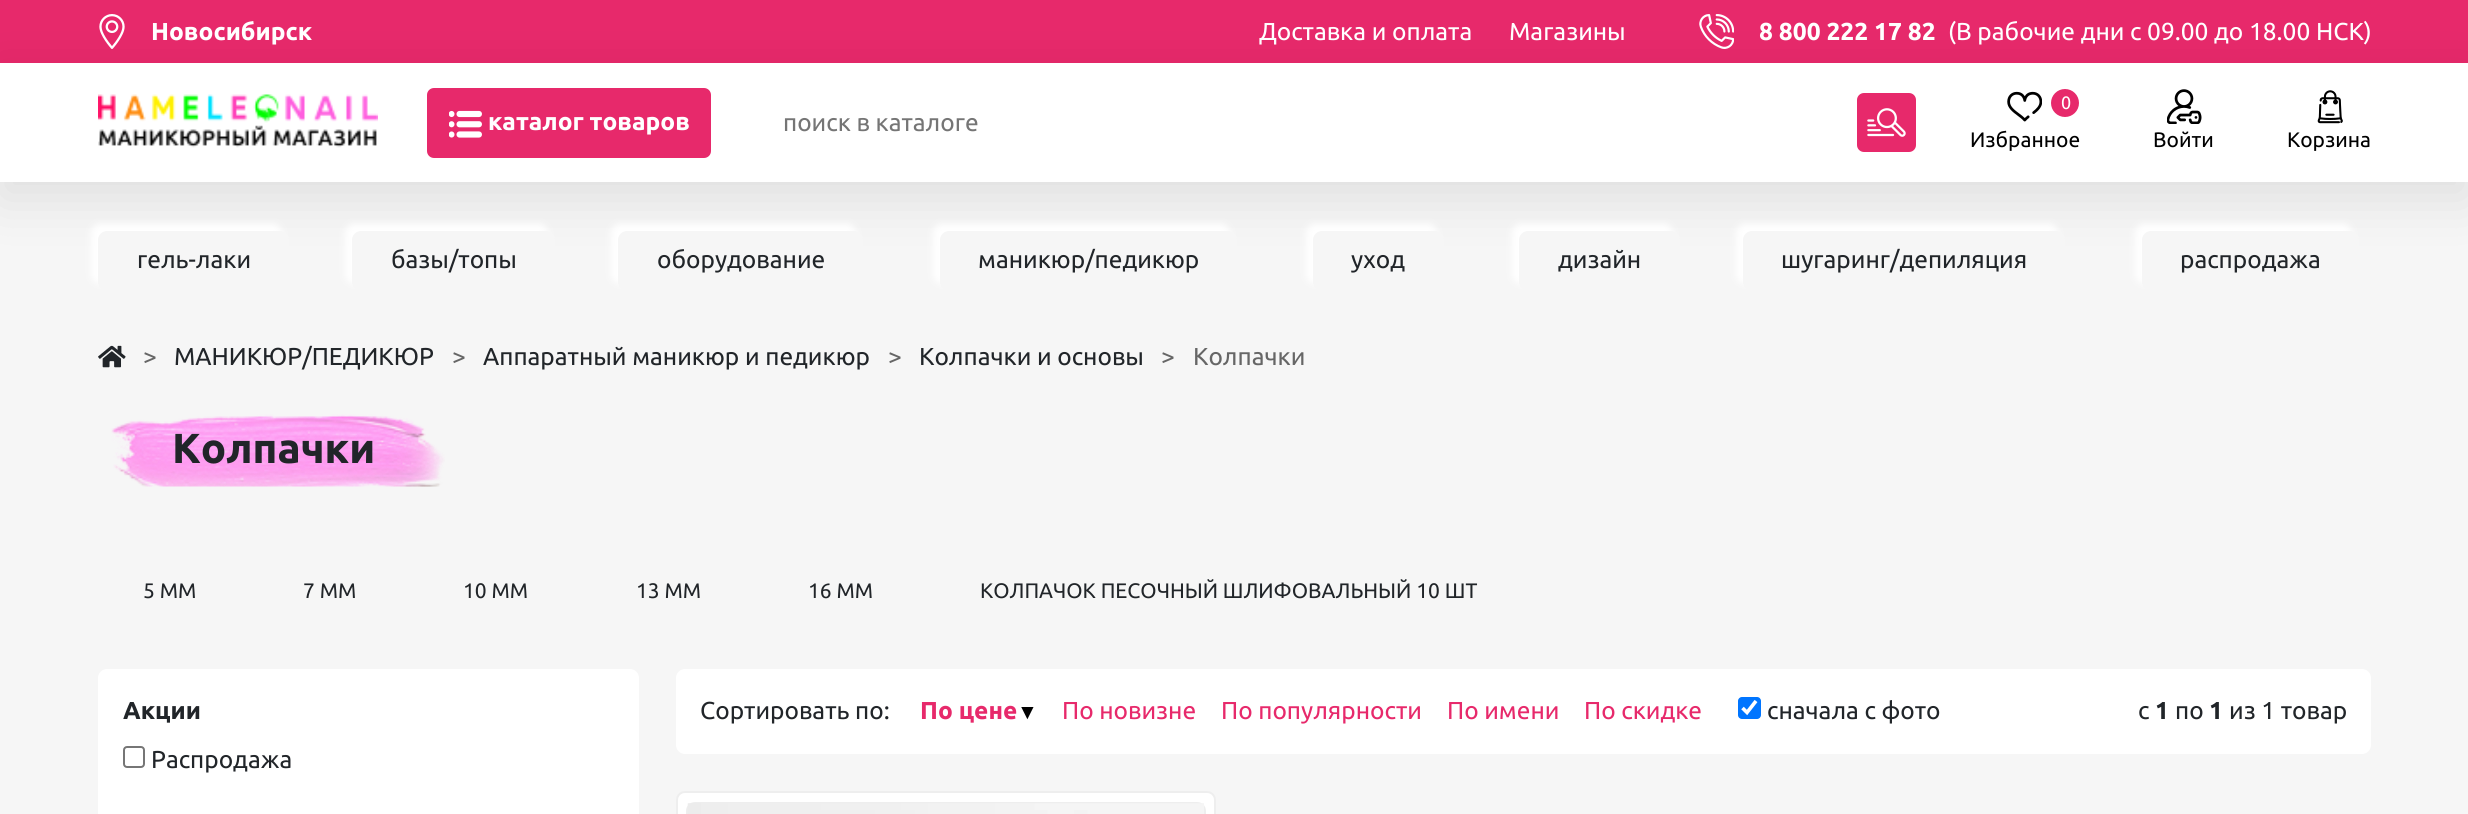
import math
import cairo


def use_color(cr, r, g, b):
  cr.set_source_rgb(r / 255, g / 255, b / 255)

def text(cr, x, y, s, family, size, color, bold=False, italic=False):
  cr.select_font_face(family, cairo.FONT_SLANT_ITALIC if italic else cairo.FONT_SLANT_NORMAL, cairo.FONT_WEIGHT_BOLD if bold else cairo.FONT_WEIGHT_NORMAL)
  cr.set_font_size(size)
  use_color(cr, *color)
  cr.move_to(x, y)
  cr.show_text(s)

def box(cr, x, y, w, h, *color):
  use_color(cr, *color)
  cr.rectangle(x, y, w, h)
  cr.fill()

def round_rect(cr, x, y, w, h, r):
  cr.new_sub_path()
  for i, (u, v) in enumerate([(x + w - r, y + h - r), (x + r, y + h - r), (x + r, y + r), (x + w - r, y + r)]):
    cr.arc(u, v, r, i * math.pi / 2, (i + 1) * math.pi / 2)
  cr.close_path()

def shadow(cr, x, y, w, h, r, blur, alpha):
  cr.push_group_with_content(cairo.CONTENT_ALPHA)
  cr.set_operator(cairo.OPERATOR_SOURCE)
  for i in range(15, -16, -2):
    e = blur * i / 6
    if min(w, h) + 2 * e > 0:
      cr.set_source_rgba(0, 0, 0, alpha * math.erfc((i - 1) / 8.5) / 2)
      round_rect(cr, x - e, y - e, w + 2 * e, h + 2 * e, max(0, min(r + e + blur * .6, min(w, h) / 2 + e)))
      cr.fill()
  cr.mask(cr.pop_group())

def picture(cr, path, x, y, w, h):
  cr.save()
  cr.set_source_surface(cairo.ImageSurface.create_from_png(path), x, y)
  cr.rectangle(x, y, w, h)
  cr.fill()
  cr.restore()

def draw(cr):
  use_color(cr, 246, 246, 246)
  cr.paint()
  box(cr, 0, 0, 2468, 63, 231, 41, 107)
  use_color(cr, 0, 0, 0)
  shadow(cr, 0, 79, 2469, 119, 0, 26, 0.1)
  picture(cr, "img_01.png", 99, 14, 26, 35)
  picture(cr, "img_02.png", 1699, 14, 35, 35)
  box(cr, 0, 63, 2468, 119, 255, 255, 255)
  picture(cr, "img_03.png", 98, 94, 280, 54)
  use_color(cr, 231, 41, 107)
  round_rect(cr, 428, 89, 282, 68, 6)
  cr.fill_preserve()
  cr.stroke()
  picture(cr, "img_04.png", 449, 110, 33, 28)
  round_rect(cr, 1858, 94, 57, 57, 6)
  cr.fill_preserve()
  cr.stroke()
  picture(cr, "img_05.png", 1867, 108, 39, 29)
  picture(cr, "img_06.png", 2007, 91, 35, 31)
  cr.arc(2065, 103, 14, 0, 2 * math.pi)
  cr.fill()
  picture(cr, "img_07.png", 2167, 89, 35, 35)
  picture(cr, "img_08.png", 2317, 90, 26, 34)
  use_color(cr, 255, 255, 255)
  shadow(cr, 91, 224, 191, 60, 9, 3.5, 1)
  use_color(cr, 246, 246, 246)
  round_rect(cr, 98, 231, 191, 60, 9)
  cr.fill()
  use_color(cr, 255, 255, 255)
  shadow(cr, 345, 224, 203, 60, 9, 3.5, 1)
  use_color(cr, 246, 246, 246)
  round_rect(cr, 352, 231, 203, 60, 9)
  cr.fill()
  use_color(cr, 255, 255, 255)
  shadow(cr, 611, 224, 245, 60, 9, 3.5, 1)
  use_color(cr, 246, 246, 246)
  round_rect(cr, 618, 231, 245, 60, 9)
  cr.fill()
  use_color(cr, 255, 255, 255)
  shadow(cr, 933, 224, 297, 60, 9, 3.5, 1)
  use_color(cr, 246, 246, 246)
  round_rect(cr, 940, 231, 297, 60, 9)
  cr.fill()
  use_color(cr, 255, 255, 255)
  shadow(cr, 1306, 224, 131, 60, 9, 3.5, 1)
  use_color(cr, 246, 246, 246)
  round_rect(cr, 1313, 231, 131, 60, 9)
  cr.fill()
  use_color(cr, 255, 255, 255)
  shadow(cr, 1512, 224, 161, 60, 9, 3.5, 1)
  use_color(cr, 246, 246, 246)
  round_rect(cr, 1519, 231, 161, 60, 9)
  cr.fill()
  use_color(cr, 255, 255, 255)
  shadow(cr, 1736, 224, 322, 60, 9, 3.5, 1)
  use_color(cr, 246, 246, 246)
  round_rect(cr, 1743, 231, 322, 60, 9)
  cr.fill()
  use_color(cr, 255, 255, 255)
  shadow(cr, 2135, 224, 217, 60, 9, 3.5, 1)
  use_color(cr, 246, 246, 246)
  round_rect(cr, 2142, 231, 217, 60, 9)
  cr.fill()
  picture(cr, "img_09.png", 98, 345, 28, 23)
  picture(cr, "img_10.png", 111, 414, 334, 73)
  use_color(cr, 255, 255, 255)
  round_rect(cr, 98, 669, 541, 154, 9)
  cr.fill()
  round_rect(cr, 124, 747, 20, 20, 3)
  use_color(cr, 118, 118, 118)
  cr.stroke()
  use_color(cr, 255, 255, 255)
  round_rect(cr, 676, 669, 1695, 85, 9)
  cr.fill()
  use_color(cr, 0, 117, 255)
  round_rect(cr, 1738, 697, 23, 22, 4)
  cr.fill()
  cr.new_path()
  cr.move_to(1742.5, 708)
  cr.line_to(1747, 712.5)
  cr.line_to(1756, 701)
  use_color(cr, 255, 255, 255)
  cr.set_line_width(3.6)
  cr.stroke()
  round_rect(cr, 677, 792, 538, 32, 8)
  cr.fill_preserve()
  use_color(cr, 238, 238, 238)
  cr.set_line_width(2)
  cr.stroke()
  cr.new_path()
  cr.move_to(695, 803)
  cr.line_to(1197, 803)
  cr.curve_to(1201.5, 803, 1205, 806.5, 1205, 811)
  cr.line_to(1205, 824)
  cr.line_to(687, 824)
  cr.line_to(687, 811)
  cr.curve_to(687, 806.5, 690.5, 803, 695, 803)
  cr.close_path()
  cr.stroke()
  picture(cr, "img_11.png", 687, 803, 517, 11)
  text(cr, 151, 40, "Новосибирск", "Ubuntu", 24.5, (255, 255, 255), bold=True)
  text(cr, 1259, 40, "Доставка и оплата", "Ubuntu", 24.5, (255, 255, 255))
  text(cr, 1509, 40, "Магазины", "Ubuntu", 24.5, (255, 255, 255))
  text(cr, 1759, 40, "8 800 222 17 82", "Ubuntu", 24.5, (255, 255, 255), bold=True)
  text(cr, 1948, 40, "(В рабочие дни с 09.00 до 18.00 НСК)", "Ubuntu", 24.5, (255, 255, 255))
  text(cr, 488, 130, "каталог товаров", "Ubuntu", 24.5, (255, 255, 255), bold=True)
  text(cr, 783, 131, "поиск в каталоге", "Ubuntu", 24.5, (117, 117, 117))
  text(cr, 2061, 109, "0", "Ubuntu", 18, (255, 255, 255))
  text(cr, 1970, 147, "Избранное", "Ubuntu", 21, (0, 0, 0))
  text(cr, 2153, 147, "Войти", "Ubuntu", 21, (0, 0, 0))
  text(cr, 2287, 147, "Корзина", "Ubuntu", 21, (0, 0, 0))
  text(cr, 137, 268, "гель-лаки", "Ubuntu", 24.5, (33, 37, 41))
  text(cr, 391, 268, "базы/топы", "Ubuntu", 24.5, (33, 37, 41))
  text(cr, 657, 268, "оборудование", "Ubuntu", 24.5, (33, 37, 41))
  text(cr, 978, 268, "маникюр/педикюр", "Ubuntu", 24.5, (33, 37, 41))
  text(cr, 1351, 268, "уход", "Ubuntu", 24.5, (33, 37, 41))
  text(cr, 1558, 268, "дизайн", "Ubuntu", 24.5, (33, 37, 41))
  text(cr, 1781, 268, "шугаринг/депиляция", "Ubuntu", 24.5, (33, 37, 41))
  text(cr, 2180, 268, "распродажа", "Ubuntu", 24.5, (33, 37, 41))
  text(cr, 143, 365, ">", "Ubuntu", 24.5, (102, 102, 102))
  text(cr, 174, 365, "МАНИКЮР/ПЕДИКЮР", "Ubuntu", 24.5, (33, 37, 41))
  text(cr, 452, 365, ">", "Ubuntu", 24.5, (102, 102, 102))
  text(cr, 483, 365, "Аппаратный маникюр и педикюр", "Ubuntu", 24.5, (33, 37, 41))
  text(cr, 888, 365, ">", "Ubuntu", 24.5, (102, 102, 102))
  text(cr, 919, 365, "Колпачки и основы", "Ubuntu", 24.5, (33, 37, 41))
  text(cr, 1161, 365, ">", "Ubuntu", 24.5, (102, 102, 102))
  text(cr, 1193, 365, "Колпачки", "Ubuntu", 24.5, (102, 102, 102))
  text(cr, 172, 463, "Колпачки", "Ubuntu", 42, (33, 37, 41), bold=True)
  text(cr, 143, 598, "5 ММ", "Ubuntu", 21, (33, 37, 41))
  text(cr, 303, 598, "7 ММ", "Ubuntu", 21, (33, 37, 41))
  text(cr, 463, 598, "10 ММ", "Ubuntu", 21, (33, 37, 41))
  text(cr, 636, 598, "13 ММ", "Ubuntu", 21, (33, 37, 41))
  text(cr, 808, 598, "16 ММ", "Ubuntu", 21, (33, 37, 41))
  text(cr, 980, 598, "КОЛПАЧОК ПЕСОЧНЫЙ ШЛИФОВАЛЬНЫЙ 10 ШТ", "Ubuntu", 21, (33, 37, 41))
  text(cr, 123, 719, "Акции", "Ubuntu", 24.5, (33, 37, 41), bold=True)
  text(cr, 151, 768, "Распродажа", "Ubuntu", 24.5, (33, 37, 41))
  text(cr, 700, 719, "Сортировать по:", "Ubuntu", 24.5, (33, 37, 41))
  text(cr, 920, 719, "По цене", "Ubuntu", 24.5, (231, 41, 107), bold=True)
  text(cr, 1017, 719, "▼", "Liberation Sans", 21, (0, 0, 0), bold=True)
  text(cr, 1062, 719, "По новизне", "Ubuntu", 24.5, (231, 41, 107))
  text(cr, 1221, 719, "По популярности", "Ubuntu", 24.5, (231, 41, 107))
  text(cr, 1447, 719, "По имени", "Ubuntu", 24.5, (231, 41, 107))
  text(cr, 1584, 719, "По скидке", "Ubuntu", 24.5, (231, 41, 107))
  text(cr, 1767, 719, "сначала с фото", "Ubuntu", 24.5, (33, 37, 41))
  text(cr, 2138, 719, "с", "Ubuntu", 24.5, (33, 37, 41))
  text(cr, 2155, 719, "1", "Ubuntu", 24.5, (33, 37, 41), bold=True)
  text(cr, 2175, 719, "по", "Ubuntu", 24.5, (33, 37, 41))
  text(cr, 2209, 719, "1", "Ubuntu", 24.5, (33, 37, 41), bold=True)
  text(cr, 2229, 719, "из 1 товар", "Ubuntu", 24.5, (33, 37, 41))


surface = cairo.ImageSurface(cairo.FORMAT_RGB24, 2468, 814)
cr = cairo.Context(surface)
options = cairo.FontOptions()
options.set_hint_metrics(cairo.HINT_METRICS_OFF)
options.set_hint_style(cairo.HINT_STYLE_NONE)
cr.set_font_options(options)
cr.set_miter_limit(4)
draw(cr)
surface.write_to_png("out.png")
